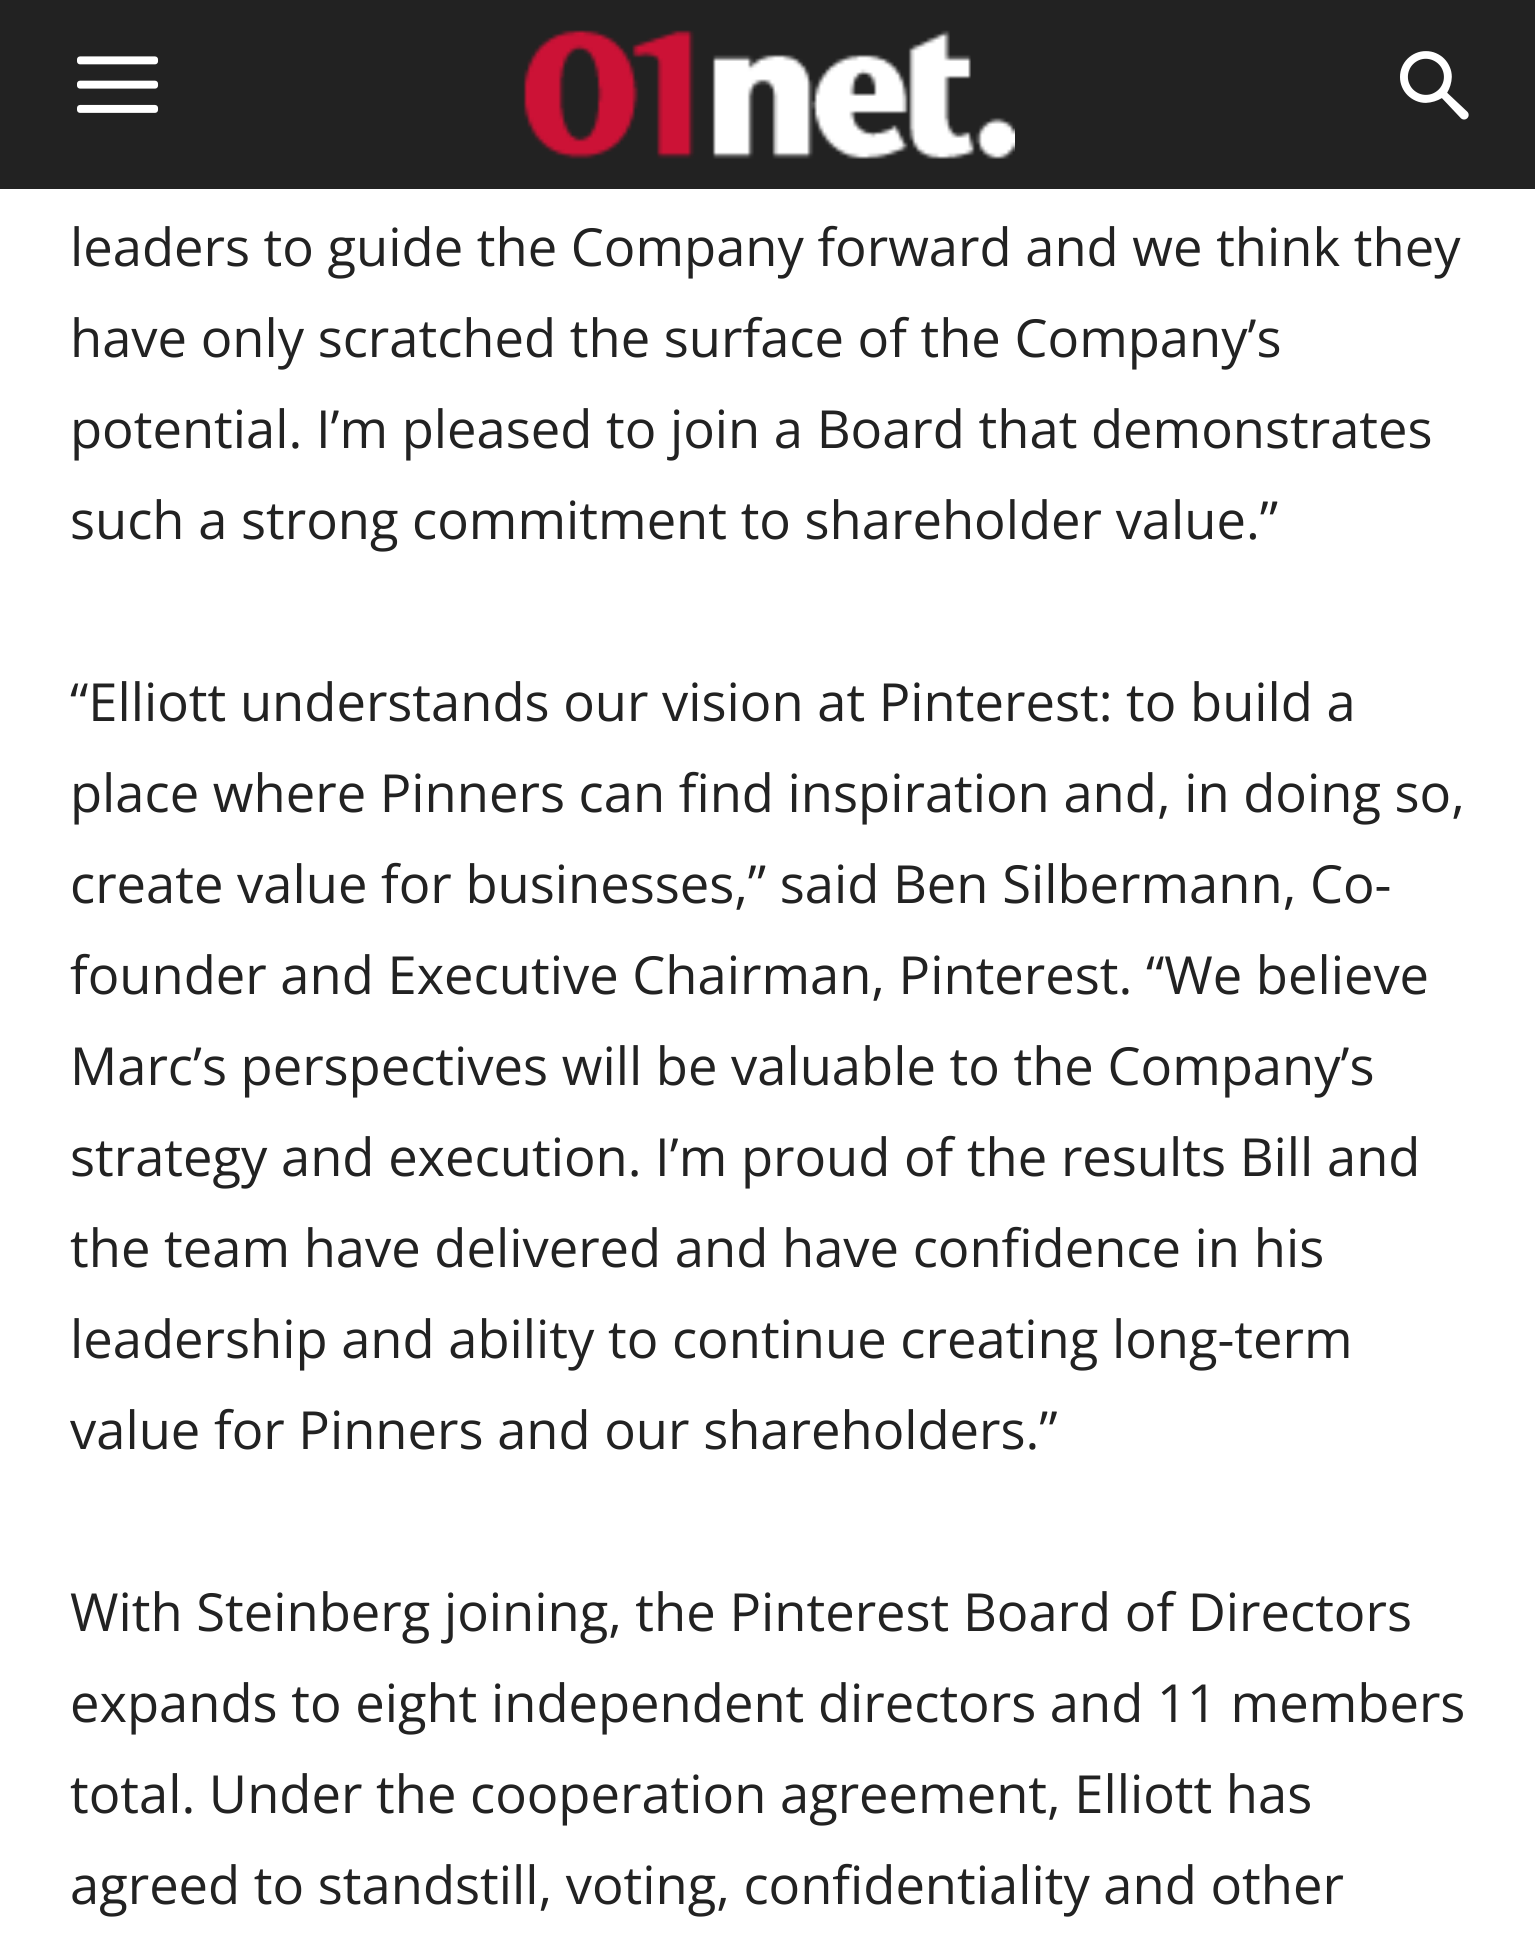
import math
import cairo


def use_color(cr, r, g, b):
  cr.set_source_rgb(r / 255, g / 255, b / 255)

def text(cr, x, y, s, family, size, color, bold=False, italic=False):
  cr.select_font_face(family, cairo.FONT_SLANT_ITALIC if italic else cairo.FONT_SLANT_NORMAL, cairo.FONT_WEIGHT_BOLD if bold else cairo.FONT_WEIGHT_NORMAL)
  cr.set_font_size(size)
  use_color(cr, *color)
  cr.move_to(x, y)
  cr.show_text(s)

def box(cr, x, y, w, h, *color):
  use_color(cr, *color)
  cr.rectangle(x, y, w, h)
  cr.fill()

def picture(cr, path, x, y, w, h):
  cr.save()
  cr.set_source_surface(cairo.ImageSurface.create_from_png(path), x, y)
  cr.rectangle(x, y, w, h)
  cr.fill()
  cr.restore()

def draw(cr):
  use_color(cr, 255, 255, 255)
  cr.paint()
  box(cr, 0, 0, 1535, 189, 34, 34, 34)
  picture(cr, "img_01.png", 77, 56, 82, 57)
  picture(cr, "img_02.png", 523, 30, 492, 129)
  picture(cr, "img_03.png", 1400, 51, 69, 69)
  text(cr, 70, 266, "leaders to guide the Company forward and we think they", "Open Sans", 52.5, (34, 34, 34))
  text(cr, 70, 357, "have only scratched the surface of the Company’s", "Open Sans", 52.5, (34, 34, 34))
  text(cr, 70, 448, "potential. I’m pleased to join a Board that demonstrates", "Open Sans", 52.5, (34, 34, 34))
  text(cr, 70, 539, "such a strong commitment to shareholder value.”", "Open Sans", 52.5, (34, 34, 34))
  text(cr, 70, 721, "“Elliott understands our vision at Pinterest: to build a", "Open Sans", 52.5, (34, 34, 34))
  text(cr, 70, 812, "place where Pinners can find inspiration and, in doing so,", "Open Sans", 52.5, (34, 34, 34))
  text(cr, 70, 903, "create value for businesses,” said Ben Silbermann, Co-", "Open Sans", 52.5, (34, 34, 34))
  text(cr, 70, 994, "founder and Executive Chairman, Pinterest. “We believe", "Open Sans", 52.5, (34, 34, 34))
  text(cr, 70, 1085, "Marc’s perspectives will be valuable to the Company’s", "Open Sans", 52.5, (34, 34, 34))
  text(cr, 70, 1176, "strategy and execution. I’m proud of the results Bill and", "Open Sans", 52.5, (34, 34, 34))
  text(cr, 70, 1267, "the team have delivered and have confidence in his", "Open Sans", 52.5, (34, 34, 34))
  text(cr, 70, 1358, "leadership and ability to continue creating long-term", "Open Sans", 52.5, (34, 34, 34))
  text(cr, 70, 1449, "value for Pinners and our shareholders.”", "Open Sans", 52.5, (34, 34, 34))
  text(cr, 70, 1631, "With Steinberg joining, the Pinterest Board of Directors", "Open Sans", 52.5, (34, 34, 34))
  text(cr, 70, 1722, "expands to eight independent directors and 11 members", "Open Sans", 52.5, (34, 34, 34))
  text(cr, 70, 1813, "total. Under the cooperation agreement, Elliott has", "Open Sans", 52.5, (34, 34, 34))
  text(cr, 70, 1904, "agreed to standstill, voting, confidentiality and other", "Open Sans", 52.5, (34, 34, 34))


surface = cairo.ImageSurface(cairo.FORMAT_RGB24, 1535, 1958)
cr = cairo.Context(surface)
options = cairo.FontOptions()
options.set_hint_metrics(cairo.HINT_METRICS_OFF)
options.set_hint_style(cairo.HINT_STYLE_NONE)
cr.set_font_options(options)
cr.set_miter_limit(4)
draw(cr)
surface.write_to_png("out.png")
